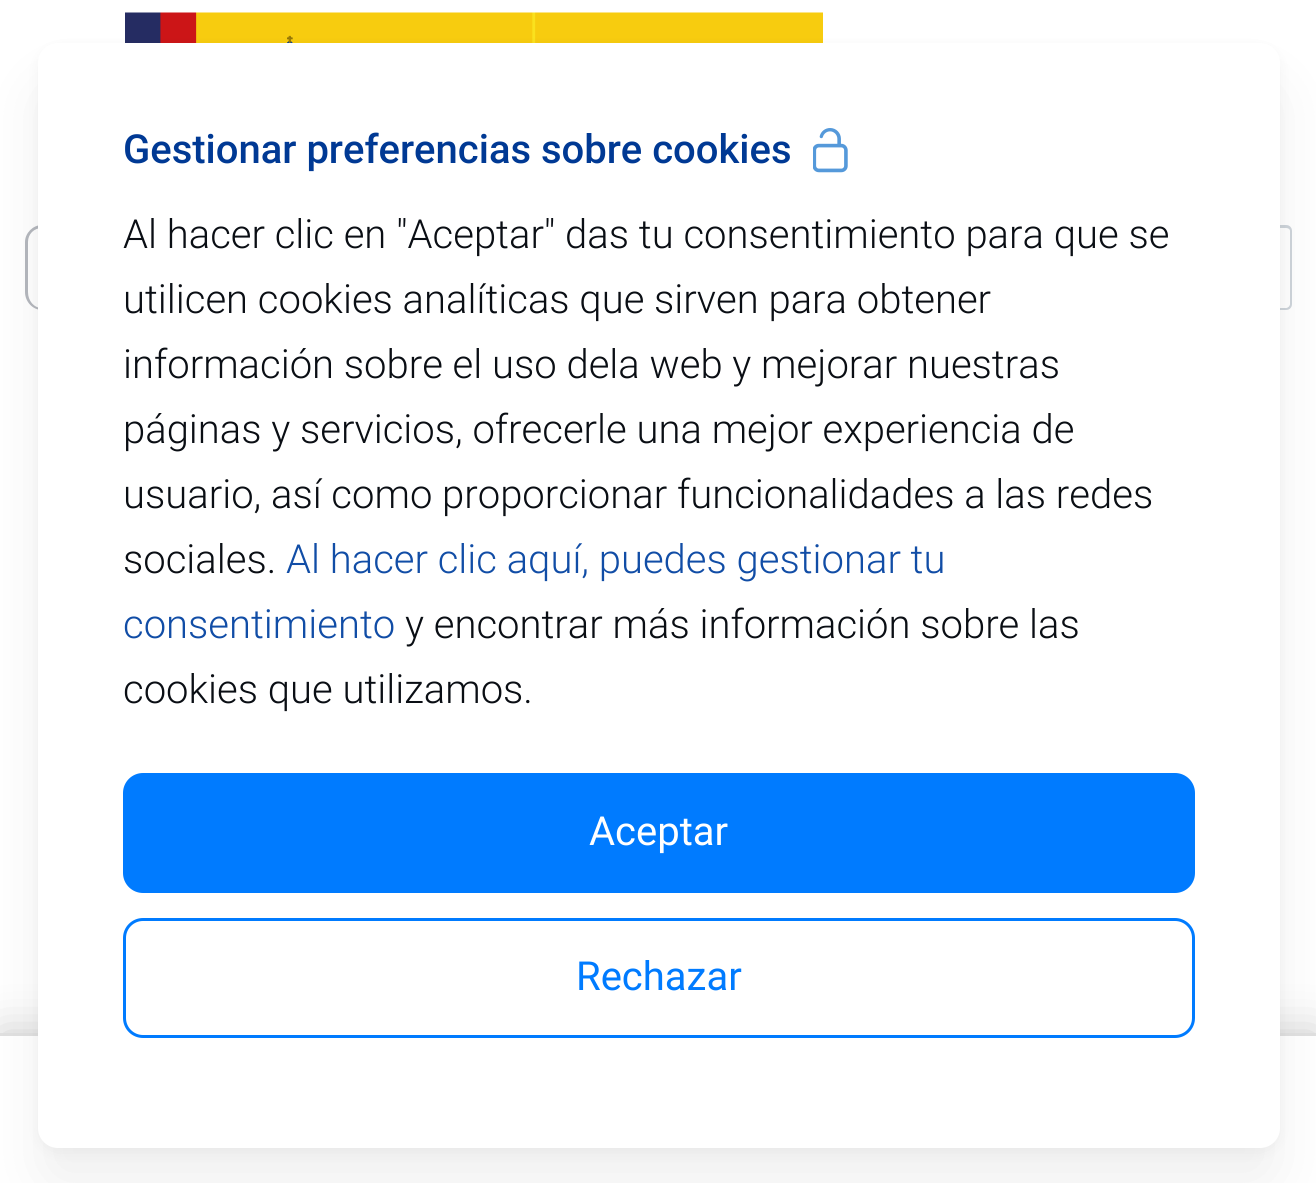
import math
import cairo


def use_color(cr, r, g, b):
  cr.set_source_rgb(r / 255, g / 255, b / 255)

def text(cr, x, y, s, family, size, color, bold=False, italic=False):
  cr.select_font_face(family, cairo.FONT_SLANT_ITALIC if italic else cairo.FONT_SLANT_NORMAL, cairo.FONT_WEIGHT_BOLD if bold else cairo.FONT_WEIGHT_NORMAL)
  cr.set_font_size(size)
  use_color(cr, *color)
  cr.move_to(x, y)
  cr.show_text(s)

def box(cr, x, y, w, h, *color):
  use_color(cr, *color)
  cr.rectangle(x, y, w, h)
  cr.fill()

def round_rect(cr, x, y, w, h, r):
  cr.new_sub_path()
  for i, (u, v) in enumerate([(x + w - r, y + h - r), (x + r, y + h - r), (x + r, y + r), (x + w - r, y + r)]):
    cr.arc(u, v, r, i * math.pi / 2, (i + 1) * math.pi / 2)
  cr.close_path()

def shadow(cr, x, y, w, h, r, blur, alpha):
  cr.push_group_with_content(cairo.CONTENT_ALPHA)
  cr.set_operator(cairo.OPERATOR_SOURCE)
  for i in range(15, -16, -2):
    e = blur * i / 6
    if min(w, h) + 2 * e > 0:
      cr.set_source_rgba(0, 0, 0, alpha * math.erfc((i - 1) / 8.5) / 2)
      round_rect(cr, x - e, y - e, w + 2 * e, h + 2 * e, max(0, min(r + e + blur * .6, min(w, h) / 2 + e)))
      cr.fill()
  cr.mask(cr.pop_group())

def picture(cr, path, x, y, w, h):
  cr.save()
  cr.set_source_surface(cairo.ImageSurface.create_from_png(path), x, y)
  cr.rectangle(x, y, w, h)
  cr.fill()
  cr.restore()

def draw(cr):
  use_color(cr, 255, 255, 255)
  cr.paint()
  picture(cr, "img_01.png", 125, 12, 1003, 31)
  use_color(cr, 181, 184, 190)
  cr.set_fill_rule(cairo.FILL_RULE_EVEN_ODD)
  cr.new_path()
  cr.move_to(42, 225)
  cr.line_to(1205, 225)
  cr.line_to(1205, 310)
  cr.line_to(42, 310)
  cr.curve_to(33, 310, 25, 302, 25, 292)
  cr.line_to(25, 242)
  cr.curve_to(25, 233, 33, 225, 42, 225)
  cr.close_path()
  cr.move_to(42, 228)
  cr.line_to(1205, 228)
  cr.line_to(1205, 308)
  cr.line_to(42, 308)
  cr.curve_to(34, 308, 28, 301, 28, 292)
  cr.line_to(28, 242)
  cr.curve_to(28, 234, 34, 228, 42, 228)
  cr.close_path()
  cr.fill()
  use_color(cr, 206, 212, 218)
  cr.new_path()
  cr.move_to(1205, 225)
  cr.line_to(1286, 225)
  cr.curve_to(1290, 225, 1292, 228, 1292, 231)
  cr.line_to(1292, 304)
  cr.curve_to(1292, 307, 1290, 310, 1286, 310)
  cr.line_to(1205, 310)
  cr.close_path()
  cr.move_to(1205, 228)
  cr.line_to(1286, 228)
  cr.curve_to(1288, 228, 1290, 229, 1290, 231)
  cr.line_to(1290, 304)
  cr.curve_to(1290, 306, 1288, 308, 1286, 308)
  cr.line_to(1205, 308)
  cr.close_path()
  cr.fill()
  use_color(cr, 0, 0, 0)
  shadow(cr, 0, 1033, 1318, 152, 0, 22.5, 0.2)
  box(cr, 0, 1036, 1316, 147, 255, 255, 255)
  box(cr, 0, 1033, 1316, 3, 224, 224, 224)
  use_color(cr, 0, 0, 0)
  shadow(cr, 38, 48, 1242, 1105, 20, 7.5, 0.04)
  shadow(cr, 38, 83, 1242, 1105, 20, 30, 0.06)
  use_color(cr, 255, 255, 255)
  round_rect(cr, 38, 43, 1242, 1105, 20)
  cr.fill()
  picture(cr, "img_02.png", 813, 128, 35, 45)
  use_color(cr, 0, 123, 255)
  round_rect(cr, 124.5, 774.5, 1069, 117, 18.5)
  cr.fill_preserve()
  cr.set_line_width(3)
  cr.stroke()
  round_rect(cr, 124.5, 919.5, 1069, 117, 18.5)
  cr.stroke()
  text(cr, 123, 163, "Gestionar preferencias sobre cookies", "Roboto Medium", 40, (0, 57, 148))
  text(cr, 123, 248, "Al hacer clic en \"Aceptar\" das tu consentimiento para que se", "Roboto Light", 40, (10, 14, 20))
  text(cr, 123, 313, "utilicen cookies analíticas que sirven para obtener", "Roboto Light", 40, (10, 14, 20))
  text(cr, 123, 378, "información sobre el uso dela web y mejorar nuestras", "Roboto Light", 40, (10, 14, 20))
  text(cr, 123, 443, "páginas y servicios, ofrecerle una mejor experiencia de", "Roboto Light", 40, (10, 14, 20))
  text(cr, 123, 508, "usuario, así como proporcionar funcionalidades a las redes", "Roboto Light", 40, (10, 14, 20))
  text(cr, 123, 573, "sociales.", "Roboto Light", 40, (10, 14, 20))
  text(cr, 286, 573, "Al hacer clic aquí, puedes gestionar tu", "Roboto Light", 40, (17, 77, 166))
  text(cr, 123, 638, "consentimiento", "Roboto Light", 40, (17, 77, 166))
  text(cr, 405, 638, "y encontrar más información sobre las", "Roboto Light", 40, (10, 14, 20))
  text(cr, 123, 703, "cookies que utilizamos.", "Roboto Light", 40, (10, 14, 20))
  text(cr, 589, 845, "Aceptar", "Roboto", 40, (255, 255, 255))
  text(cr, 576, 990, "Rechazar", "Roboto", 40, (0, 123, 255))


surface = cairo.ImageSurface(cairo.FORMAT_RGB24, 1316, 1183)
cr = cairo.Context(surface)
options = cairo.FontOptions()
options.set_hint_metrics(cairo.HINT_METRICS_OFF)
options.set_hint_style(cairo.HINT_STYLE_NONE)
cr.set_font_options(options)
cr.set_miter_limit(4)
draw(cr)
surface.write_to_png("out.png")
